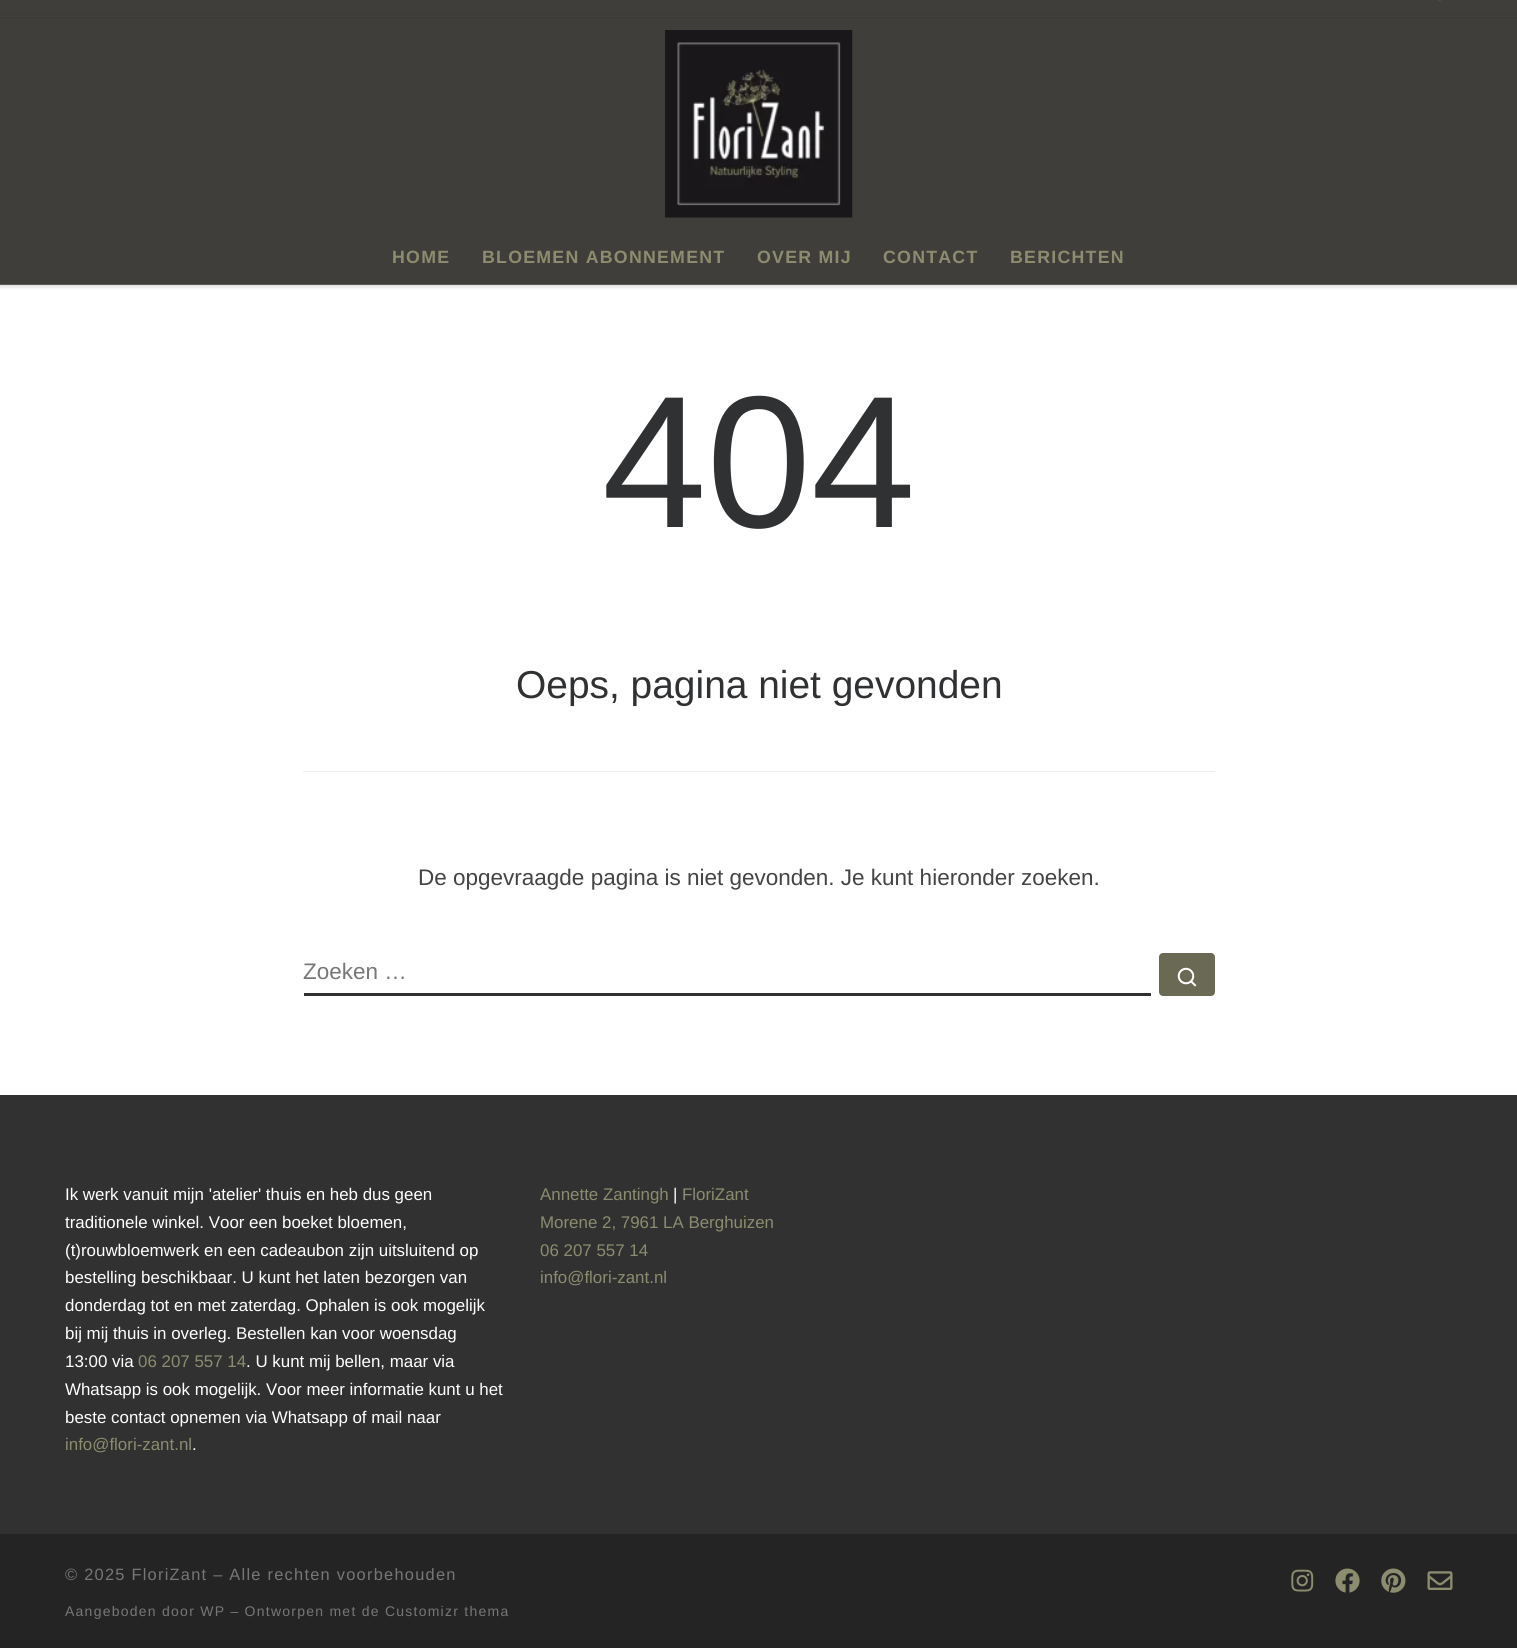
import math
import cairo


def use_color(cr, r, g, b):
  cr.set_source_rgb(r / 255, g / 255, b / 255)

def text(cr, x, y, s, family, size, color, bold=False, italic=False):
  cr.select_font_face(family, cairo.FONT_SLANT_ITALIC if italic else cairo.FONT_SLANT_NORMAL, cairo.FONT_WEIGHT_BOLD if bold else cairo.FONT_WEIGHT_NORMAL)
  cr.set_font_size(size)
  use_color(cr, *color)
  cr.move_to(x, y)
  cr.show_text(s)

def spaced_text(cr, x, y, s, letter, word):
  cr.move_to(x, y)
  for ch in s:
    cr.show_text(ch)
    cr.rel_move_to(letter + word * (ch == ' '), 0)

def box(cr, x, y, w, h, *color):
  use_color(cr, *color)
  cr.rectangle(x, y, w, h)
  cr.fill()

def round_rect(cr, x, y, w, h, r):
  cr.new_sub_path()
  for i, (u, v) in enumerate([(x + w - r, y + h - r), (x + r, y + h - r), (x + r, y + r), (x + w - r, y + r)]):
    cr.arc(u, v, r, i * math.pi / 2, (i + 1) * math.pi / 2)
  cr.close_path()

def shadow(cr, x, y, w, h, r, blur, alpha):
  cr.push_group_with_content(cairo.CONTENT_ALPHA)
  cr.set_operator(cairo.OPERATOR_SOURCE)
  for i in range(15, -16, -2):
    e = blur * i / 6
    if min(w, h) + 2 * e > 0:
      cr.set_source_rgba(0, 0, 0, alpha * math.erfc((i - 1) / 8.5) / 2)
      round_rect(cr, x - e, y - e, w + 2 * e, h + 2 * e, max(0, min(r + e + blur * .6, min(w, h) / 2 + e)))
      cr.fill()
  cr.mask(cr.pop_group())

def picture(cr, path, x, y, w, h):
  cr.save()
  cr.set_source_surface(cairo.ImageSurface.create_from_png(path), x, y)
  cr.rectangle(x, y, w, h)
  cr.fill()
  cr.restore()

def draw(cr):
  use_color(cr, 255, 255, 255)
  cr.paint()
  use_color(cr, 102, 102, 102)
  shadow(cr, 0, -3, 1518, 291, 0, 1, 0.08)
  box(cr, 0, 0, 1517, 18, 64, 62, 58)
  box(cr, 0, 16, 1517, 1, 71, 69, 63)
  picture(cr, "img_01.png", 1438, 0, 4, 1)
  use_color(cr, 99, 97, 92)
  cr.new_path()
  cr.move_to(0, 284)
  cr.line_to(0, 285)
  cr.line_to(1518, 285)
  cr.line_to(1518, 19)
  cr.line_to(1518, 284)
  cr.close_path()
  cr.fill()
  use_color(cr, 0, 0, 0)
  shadow(cr, 0, 18, 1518, 266, 0, 3, 0.2)
  box(cr, 0, 18, 1517, 266, 64, 62, 58)
  picture(cr, "img_02.png", 665, 30, 188, 188)
  box(cr, 303, 771, 912, 1, 236, 238, 239)
  box(cr, 304, 993, 847, 3, 49, 49, 49)
  use_color(cr, 106, 106, 84)
  round_rect(cr, 1160.5, 954.5, 53, 40, 2.5)
  cr.fill_preserve()
  cr.set_line_width(3)
  cr.stroke()
  picture(cr, "img_03.png", 1177, 967, 20, 20)
  box(cr, 0, 1095, 1517, 439, 49, 49, 49)
  box(cr, 0, 1534, 1517, 114, 36, 36, 36)
  picture(cr, "img_04.png", 1291, 1569, 23, 23)
  picture(cr, "img_05.png", 1335, 1568, 25, 25)
  picture(cr, "img_06.png", 1381, 1568, 25, 25)
  picture(cr, "img_07.png", 1427, 1571, 26, 19)
  cr.select_font_face("Liberation Sans", cairo.FONT_SLANT_NORMAL, cairo.FONT_WEIGHT_BOLD)
  cr.set_font_size(17.75)
  use_color(cr, 140, 140, 111)
  spaced_text(cr, 392, 263, "HOME", 1.25, 0)
  spaced_text(cr, 482, 263, "BLOEMEN ABONNEMENT", 1.25, 0)
  spaced_text(cr, 757, 263, "OVER MIJ", 1.25, 0)
  spaced_text(cr, 883, 263, "CONTACT", 1.25, 0)
  spaced_text(cr, 1010, 263, "BERICHTEN", 1.25, 0)
  text(cr, 602, 527, "404", "Liberation Sans", 188, (48, 49, 51))
  text(cr, 516, 698, "Oeps, pagina niet gevonden", "Liberation Sans", 38.9, (48, 49, 51))
  text(cr, 418, 885, "De opgevraagde pagina is niet gevonden. Je kunt hieronder zoeken.", "Liberation Sans", 22.5, (68, 68, 68))
  text(cr, 303, 979, "Zoeken …", "Liberation Sans", 22.5, (119, 119, 119))
  text(cr, 65, 1200, "Ik werk vanuit mijn 'atelier' thuis en heb dus geen", "Liberation Sans", 16.9, (255, 255, 255))
  text(cr, 65, 1228, "traditionele winkel. Voor een boeket bloemen,", "Liberation Sans", 16.9, (255, 255, 255))
  text(cr, 65, 1256, "(t)rouwbloemwerk en een cadeaubon zijn uitsluitend op", "Liberation Sans", 16.9, (255, 255, 255))
  text(cr, 65, 1283, "bestelling beschikbaar. U kunt het laten bezorgen van", "Liberation Sans", 16.9, (255, 255, 255))
  text(cr, 65, 1311, "donderdag tot en met zaterdag. Ophalen is ook mogelijk", "Liberation Sans", 16.9, (255, 255, 255))
  text(cr, 65, 1339, "bij mij thuis in overleg. Bestellen kan voor woensdag", "Liberation Sans", 16.9, (255, 255, 255))
  text(cr, 65, 1367, "13:00 via", "Liberation Sans", 16.9, (255, 255, 255))
  text(cr, 138, 1367, "06 207 557 14", "Liberation Sans", 16.9, (140, 140, 111))
  text(cr, 246, 1367, ". U kunt mij bellen, maar via", "Liberation Sans", 16.9, (255, 255, 255))
  text(cr, 65, 1395, "Whatsapp is ook mogelijk. Voor meer informatie kunt u het", "Liberation Sans", 16.9, (255, 255, 255))
  text(cr, 65, 1423, "beste contact opnemen via Whatsapp of mail naar", "Liberation Sans", 16.9, (255, 255, 255))
  text(cr, 65, 1450, "info@flori-zant.nl", "Liberation Sans", 16.9, (140, 140, 111))
  text(cr, 192, 1450, ".", "Liberation Sans", 16.9, (255, 255, 255))
  text(cr, 540, 1200, "Annette Zantingh", "Liberation Sans", 16.9, (140, 140, 111))
  text(cr, 673, 1200, "|", "Liberation Sans", 16.9, (255, 255, 255))
  text(cr, 682, 1200, "FloriZant", "Liberation Sans", 16.9, (140, 140, 111))
  text(cr, 540, 1228, "Morene 2, 7961 LA Berghuizen", "Liberation Sans", 16.9, (140, 140, 111))
  text(cr, 540, 1256, "06 207 557 14", "Liberation Sans", 16.9, (140, 140, 111))
  text(cr, 540, 1283, "info@flori-zant.nl", "Liberation Sans", 16.9, (140, 140, 111))
  cr.set_font_size(16.4)
  use_color(cr, 119, 119, 119)
  spaced_text(cr, 65, 1580, "© 2025 FloriZant – Alle rechten voorbehouden", 1.25, 0)
  cr.set_font_size(14)
  spaced_text(cr, 65, 1616, "Aangeboden door WP – Ontworpen met de Customizr thema", 1.25, 0)


surface = cairo.ImageSurface(cairo.FORMAT_RGB24, 1517, 1648)
cr = cairo.Context(surface)
options = cairo.FontOptions()
options.set_hint_metrics(cairo.HINT_METRICS_OFF)
options.set_hint_style(cairo.HINT_STYLE_NONE)
cr.set_font_options(options)
cr.set_miter_limit(4)
draw(cr)
surface.write_to_png("out.png")
